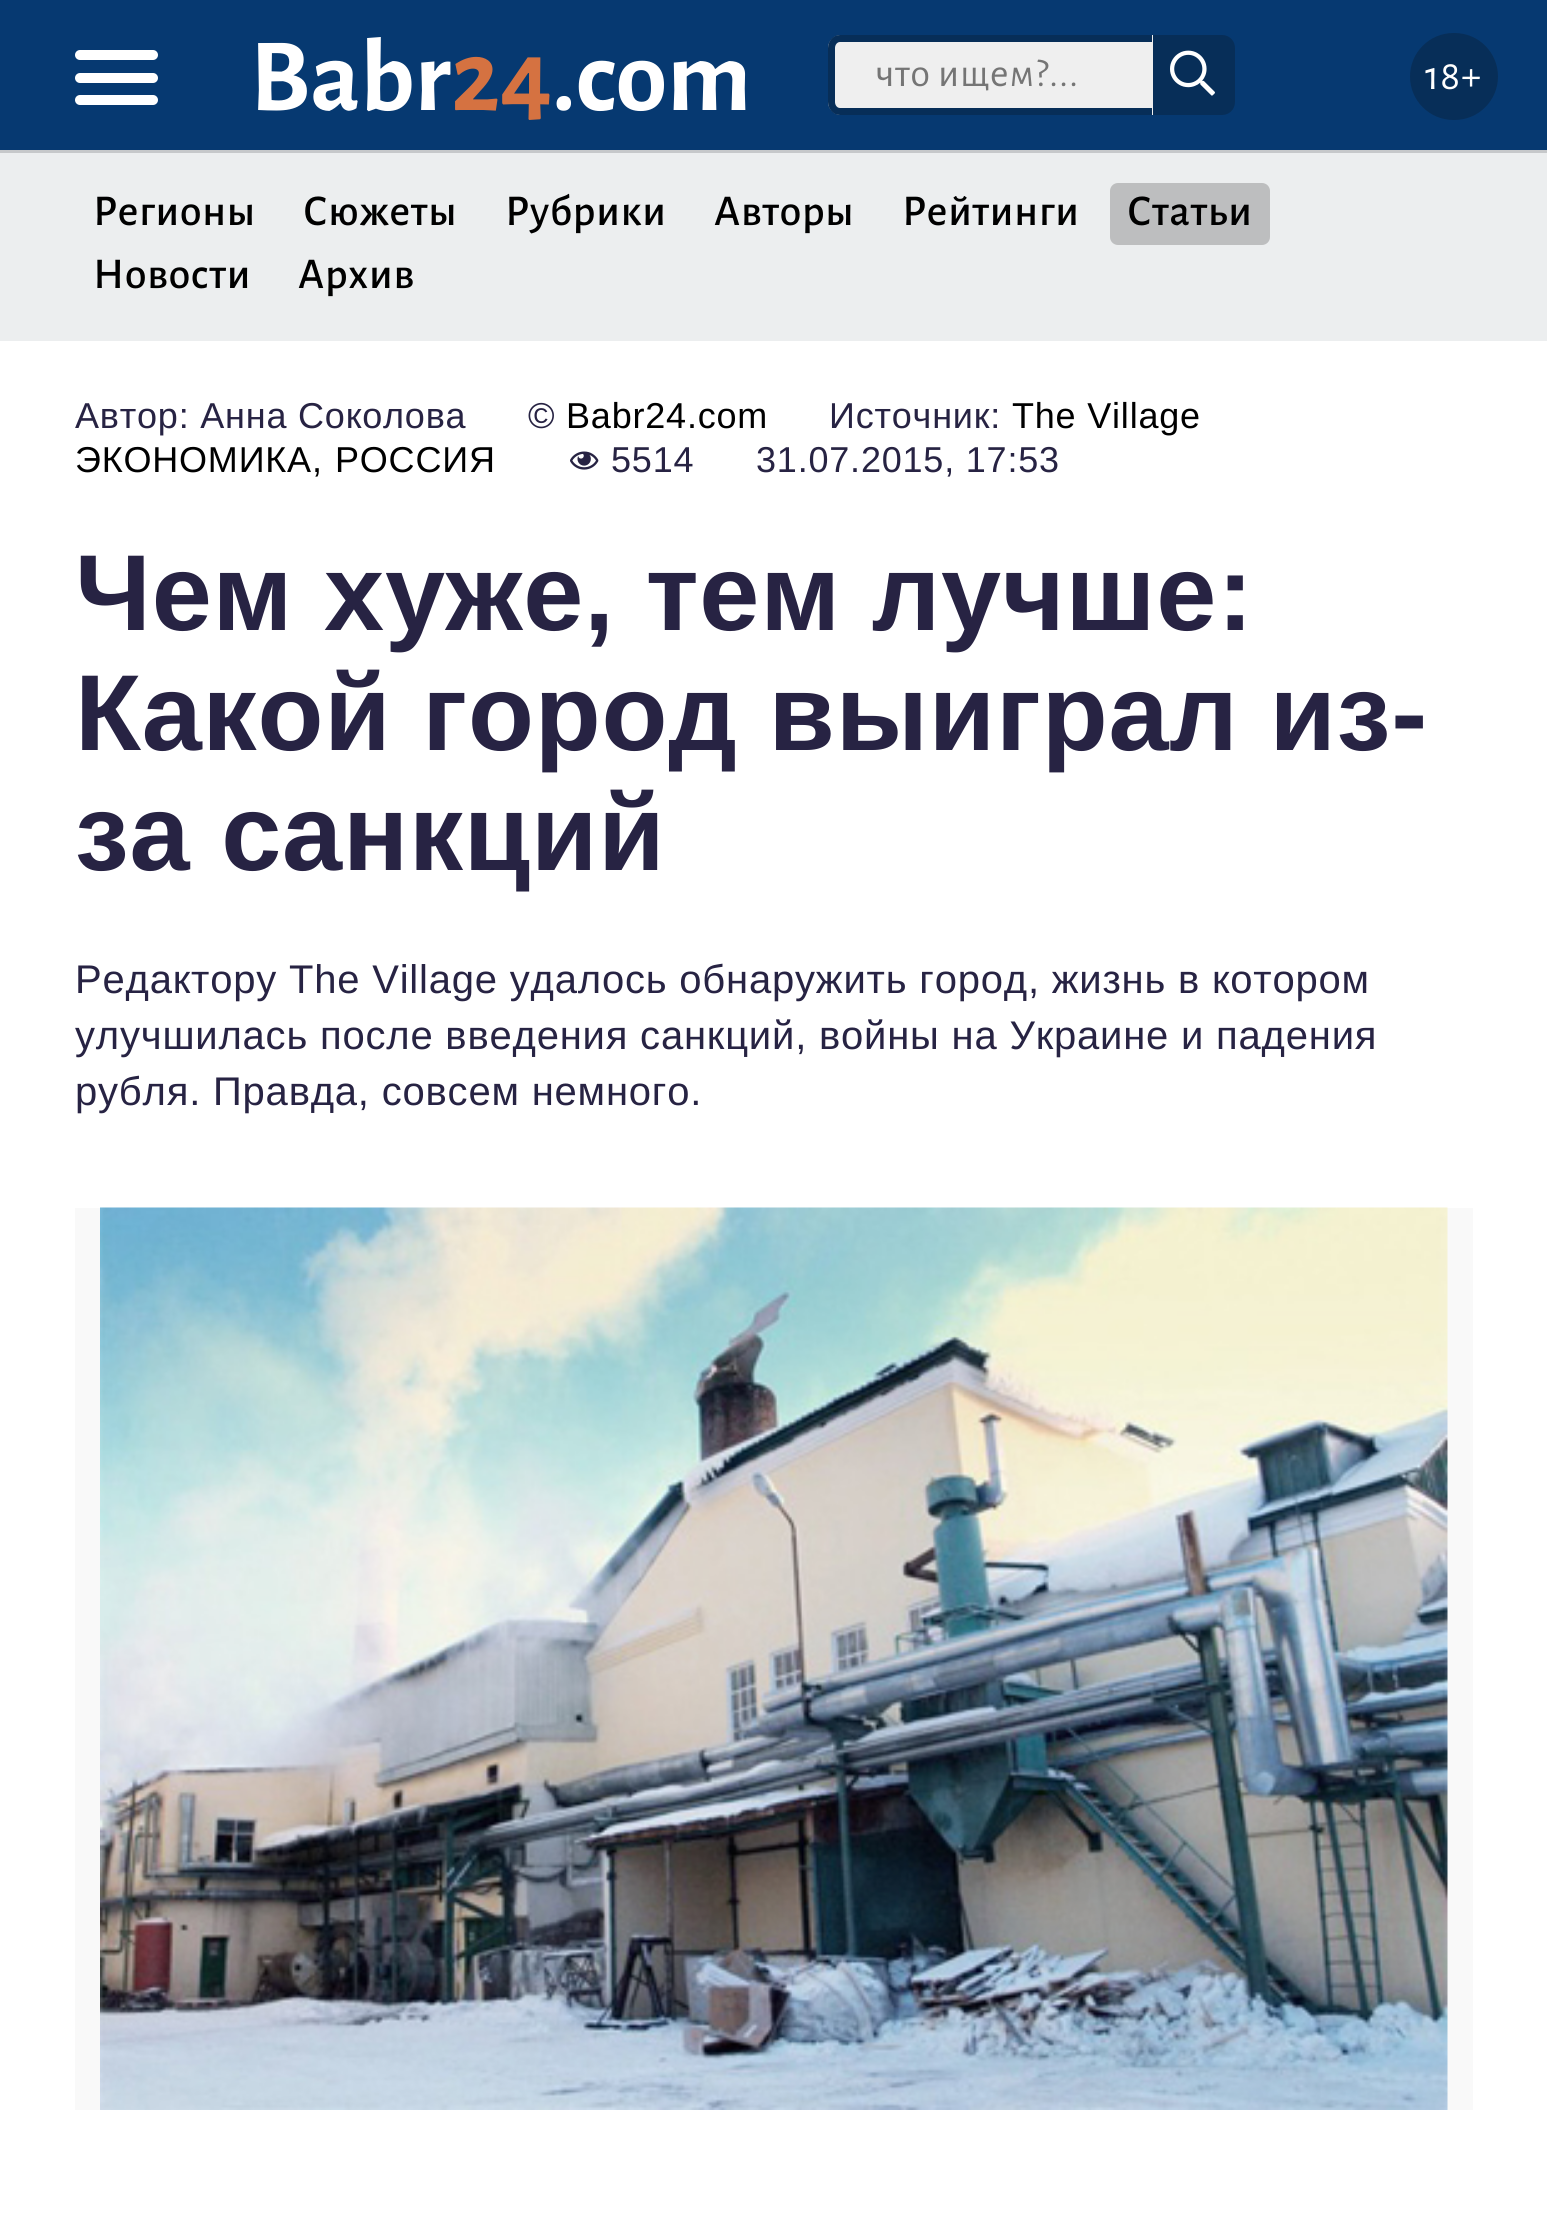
import math
import cairo


def use_color(cr, r, g, b):
  cr.set_source_rgb(r / 255, g / 255, b / 255)

def text(cr, x, y, s, family, size, color, bold=False, italic=False):
  cr.select_font_face(family, cairo.FONT_SLANT_ITALIC if italic else cairo.FONT_SLANT_NORMAL, cairo.FONT_WEIGHT_BOLD if bold else cairo.FONT_WEIGHT_NORMAL)
  cr.set_font_size(size)
  use_color(cr, *color)
  cr.move_to(x, y)
  cr.show_text(s)

def spaced_text(cr, x, y, s, letter, word):
  cr.move_to(x, y)
  for ch in s:
    cr.show_text(ch)
    cr.rel_move_to(letter + word * (ch == ' '), 0)

def box(cr, x, y, w, h, *color):
  use_color(cr, *color)
  cr.rectangle(x, y, w, h)
  cr.fill()

def round_rect(cr, x, y, w, h, r):
  cr.new_sub_path()
  for i, (u, v) in enumerate([(x + w - r, y + h - r), (x + r, y + h - r), (x + r, y + r), (x + w - r, y + r)]):
    cr.arc(u, v, r, i * math.pi / 2, (i + 1) * math.pi / 2)
  cr.close_path()

def picture(cr, path, x, y, w, h):
  cr.save()
  cr.set_source_surface(cairo.ImageSurface.create_from_png(path), x, y)
  cr.rectangle(x, y, w, h)
  cr.fill()
  cr.restore()

def draw(cr):
  use_color(cr, 236, 238, 239)
  cr.paint()
  box(cr, 0, 0, 1547, 150, 6, 57, 113)
  use_color(cr, 255, 255, 255)
  round_rect(cr, 75, 50, 83, 10, 5)
  cr.fill()
  round_rect(cr, 75, 73, 83, 10, 5)
  cr.fill()
  round_rect(cr, 75, 95, 83, 10, 5)
  cr.fill()
  use_color(cr, 239, 239, 239)
  cr.new_path()
  cr.move_to(841, 35)
  cr.line_to(1153, 35)
  cr.line_to(1153, 115)
  cr.line_to(841, 115)
  cr.curve_to(834, 115, 828, 109, 828, 102)
  cr.line_to(828, 48)
  cr.curve_to(828, 41, 834, 35, 841, 35)
  cr.close_path()
  cr.fill()
  use_color(cr, 7, 46, 88)
  cr.set_fill_rule(cairo.FILL_RULE_EVEN_ODD)
  cr.new_path()
  cr.move_to(840, 35)
  cr.line_to(1152, 35)
  cr.line_to(1152, 115)
  cr.line_to(840, 115)
  cr.curve_to(833, 115, 828, 109, 828, 102)
  cr.line_to(828, 48)
  cr.curve_to(828, 41, 833, 35, 840, 35)
  cr.close_path()
  cr.move_to(840, 42)
  cr.line_to(1152, 42)
  cr.line_to(1152, 108)
  cr.line_to(840, 108)
  cr.curve_to(837, 108, 835, 105, 835, 102)
  cr.line_to(835, 48)
  cr.curve_to(835, 45, 837, 42, 840, 42)
  cr.close_path()
  cr.fill()
  cr.new_path()
  cr.move_to(1154.5, 36.5)
  cr.line_to(1222, 36.5)
  cr.curve_to(1228.5, 36.5, 1233.5, 41.5, 1233.5, 48)
  cr.line_to(1233.5, 102)
  cr.curve_to(1233.5, 108.5, 1228.5, 113.5, 1222, 113.5)
  cr.line_to(1154.5, 113.5)
  cr.close_path()
  cr.fill_preserve()
  cr.set_line_width(3)
  cr.stroke()
  picture(cr, "img_01.png", 1170, 50, 45, 46)
  round_rect(cr, 1410, 33, 88, 87, 43.5)
  cr.fill()
  box(cr, 0, 150, 1547, 3, 198, 200, 202)
  use_color(cr, 189, 190, 191)
  round_rect(cr, 1110, 183, 160, 62, 8)
  cr.fill()
  box(cr, 0, 341, 1547, 1883, 255, 255, 255)
  picture(cr, "img_02.png", 570, 451, 29, 19)
  box(cr, 75, 1208, 1398, 902, 249, 249, 249)
  picture(cr, "img_03.png", 100, 1207, 1348, 903)
  text(cr, 250, 110, "Babr", "Alegreya Sans", 104, (255, 255, 255), bold=True)
  text(cr, 451, 110, "24", "Alegreya Sans", 104, (213, 114, 65), bold=True)
  text(cr, 552, 110, ".com", "Alegreya Sans", 104, (255, 255, 255), bold=True)
  cr.select_font_face("Alegreya Sans")
  cr.set_font_size(40)
  use_color(cr, 117, 117, 117)
  spaced_text(cr, 876, 86, "что ищем?...", 0.8, 0)
  cr.set_font_size(42)
  use_color(cr, 255, 255, 255)
  spaced_text(cr, 1425, 89, "18+", 0.8, 0)
  cr.select_font_face("Alegreya Sans Medium")
  cr.set_font_size(44)
  use_color(cr, 0, 0, 0)
  spaced_text(cr, 93, 225, "Регионы", 0.8, 0)
  spaced_text(cr, 303, 225, "Сюжеты", 0.8, 0)
  spaced_text(cr, 505, 225, "Рубрики", 0.8, 0)
  spaced_text(cr, 714, 225, "Авторы", 0.8, 0)
  spaced_text(cr, 902, 225, "Рейтинги", 0.8, 0)
  spaced_text(cr, 1127, 225, "Статьи", 0.8, 0)
  spaced_text(cr, 93, 288, "Новости", 0.8, 0)
  spaced_text(cr, 298, 288, "Архив", 0.8, 0)
  cr.select_font_face("Liberation Sans")
  cr.set_font_size(36)
  use_color(cr, 39, 35, 67)
  spaced_text(cr, 75, 428, "Автор: Анна Соколова", 0.8, 0)
  spaced_text(cr, 528, 428, "©", 0.8, 0)
  use_color(cr, 0, 0, 0)
  spaced_text(cr, 566, 428, "Babr24.com", 0.8, 0)
  use_color(cr, 39, 35, 67)
  spaced_text(cr, 829, 428, "Источник:", 0.8, 0)
  use_color(cr, 0, 0, 0)
  spaced_text(cr, 1012, 428, "The Village", 0.8, 0)
  spaced_text(cr, 75, 472, "ЭКОНОМИКА,", 0.8, 0)
  spaced_text(cr, 335, 472, "РОССИЯ", 0.8, 0)
  use_color(cr, 39, 35, 67)
  spaced_text(cr, 611, 472, "5514", 0.8, 0)
  spaced_text(cr, 756, 472, "31.07.2015, 17:53", 0.8, 0)
  cr.select_font_face("Liberation Sans", cairo.FONT_SLANT_NORMAL, cairo.FONT_WEIGHT_BOLD)
  cr.set_font_size(108)
  spaced_text(cr, 75, 630, "Чем хуже, тем лучше:", 0.8, 0)
  spaced_text(cr, 75, 750, "Какой город выиграл из-", 0.8, 0)
  spaced_text(cr, 75, 870, "за санкций", 0.8, 0)
  cr.select_font_face("Liberation Sans")
  cr.set_font_size(40)
  spaced_text(cr, 75, 993, "Редактору The Village удалось обнаружить город, жизнь в котором", 0.8, 0)
  spaced_text(cr, 75, 1049, "улучшилась после введения санкций, войны на Украине и падения", 0.8, 0)
  spaced_text(cr, 75, 1105, "рубля. Правда, совсем немного.", 0.8, 0)


surface = cairo.ImageSurface(cairo.FORMAT_RGB24, 1547, 2224)
cr = cairo.Context(surface)
options = cairo.FontOptions()
options.set_hint_metrics(cairo.HINT_METRICS_OFF)
options.set_hint_style(cairo.HINT_STYLE_NONE)
cr.set_font_options(options)
cr.set_miter_limit(4)
draw(cr)
surface.write_to_png("out.png")
